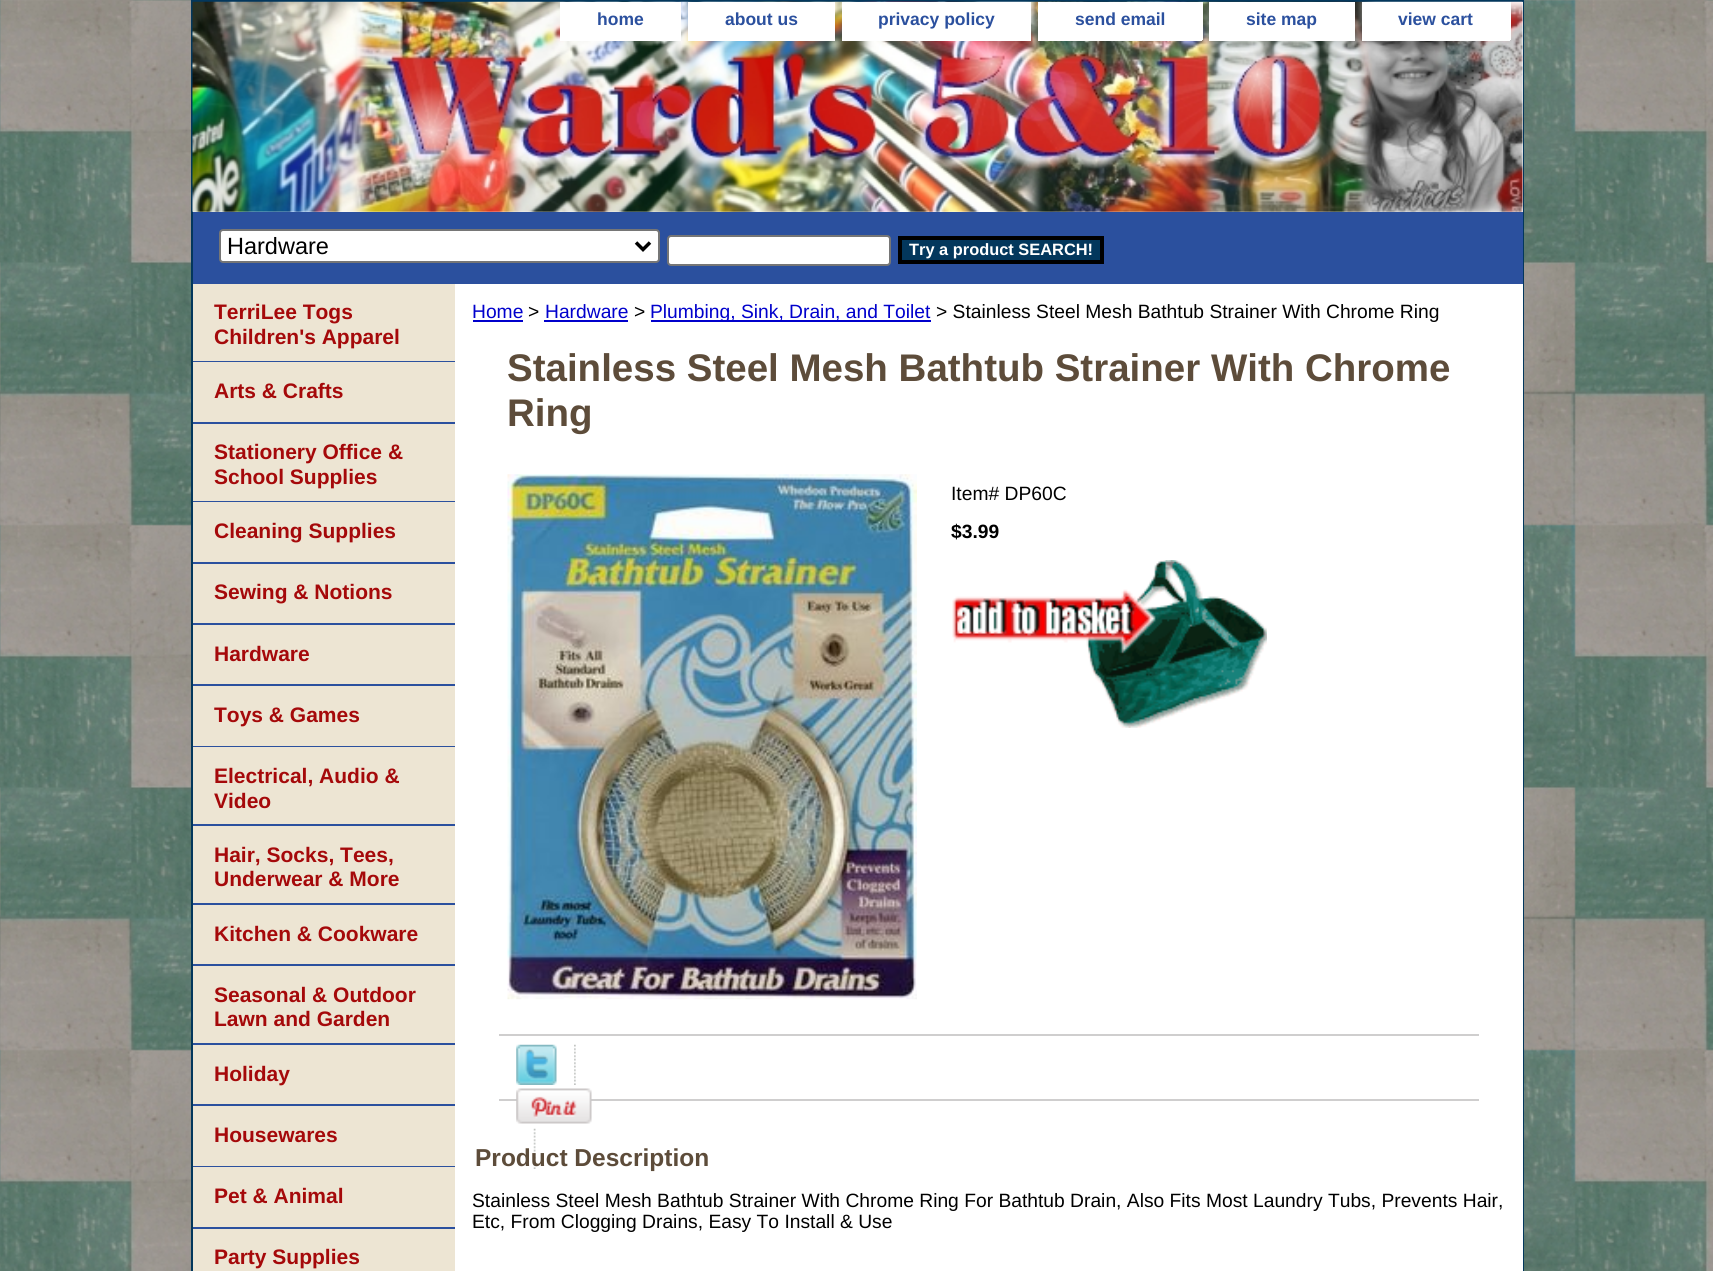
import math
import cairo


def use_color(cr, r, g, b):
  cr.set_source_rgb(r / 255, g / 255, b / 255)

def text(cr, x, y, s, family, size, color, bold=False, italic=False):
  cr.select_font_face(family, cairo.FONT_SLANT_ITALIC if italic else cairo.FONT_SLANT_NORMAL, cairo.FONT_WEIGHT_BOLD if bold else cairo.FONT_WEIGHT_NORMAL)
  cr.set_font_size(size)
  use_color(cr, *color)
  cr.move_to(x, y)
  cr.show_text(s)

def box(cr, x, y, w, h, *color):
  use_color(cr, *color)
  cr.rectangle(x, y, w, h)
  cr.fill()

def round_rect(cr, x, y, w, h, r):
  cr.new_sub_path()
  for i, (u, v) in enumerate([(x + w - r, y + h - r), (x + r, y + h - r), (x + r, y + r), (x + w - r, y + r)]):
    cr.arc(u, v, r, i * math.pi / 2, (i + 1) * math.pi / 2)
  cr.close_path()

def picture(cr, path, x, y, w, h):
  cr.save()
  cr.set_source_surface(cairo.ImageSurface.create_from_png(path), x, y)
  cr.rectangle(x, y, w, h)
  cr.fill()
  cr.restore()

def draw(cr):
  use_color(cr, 255, 255, 255)
  cr.paint()
  picture(cr, "img_01.png", 0, 0, 1713, 1271)
  cr.rectangle(192, 1, 1331, 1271)
  use_color(cr, 3, 55, 92)
  cr.stroke()
  box(cr, 193, 2, 1330, 210, 255, 255, 255)
  picture(cr, "img_02.png", 192, 1, 1331, 211)
  box(cr, 560, 2, 121, 39, 255, 255, 255)
  box(cr, 688, 2, 147, 39, 255, 255, 255)
  box(cr, 842, 2, 189, 39, 255, 255, 255)
  box(cr, 1038, 2, 163, 37, 255, 255, 255)
  box(cr, 1201, 2, 2, 38, 255, 255, 255)
  box(cr, 1038, 39, 164, 2, 255, 255, 255)
  box(cr, 1209, 2, 146, 39, 255, 255, 255)
  box(cr, 1362, 2, 147, 37, 255, 255, 255)
  box(cr, 1509, 2, 2, 38, 255, 255, 255)
  box(cr, 1362, 39, 148, 2, 255, 255, 255)
  box(cr, 193, 212, 1330, 72, 43, 80, 158)
  use_color(cr, 255, 255, 255)
  round_rect(cr, 220, 230, 439, 32, 3)
  cr.fill_preserve()
  use_color(cr, 118, 118, 118)
  cr.stroke()
  cr.new_path()
  cr.move_to(636, 242.5)
  cr.line_to(643, 249.5)
  cr.line_to(650, 242.5)
  use_color(cr, 0, 0, 0)
  cr.set_line_width(3.5)
  cr.stroke()
  use_color(cr, 255, 255, 255)
  round_rect(cr, 668, 236, 222, 29, 3)
  cr.fill_preserve()
  use_color(cr, 118, 118, 118)
  cr.set_line_width(2)
  cr.stroke()
  use_color(cr, 3, 55, 92)
  cr.rectangle(900, 238, 202, 24)
  cr.fill_preserve()
  use_color(cr, 0, 0, 0)
  cr.set_line_width(4)
  cr.stroke()
  box(cr, 455, 284, 1068, 987, 255, 255, 255)
  box(cr, 193, 284, 262, 987, 237, 229, 211)
  box(cr, 193, 361, 262, 1, 43, 80, 158)
  box(cr, 193, 422, 262, 2, 43, 80, 158)
  box(cr, 193, 501, 262, 1, 43, 80, 158)
  box(cr, 193, 562, 262, 2, 43, 80, 158)
  box(cr, 193, 623, 262, 2, 43, 80, 158)
  box(cr, 193, 684, 262, 2, 43, 80, 158)
  box(cr, 193, 746, 262, 1, 43, 80, 158)
  box(cr, 193, 824, 262, 2, 43, 80, 158)
  box(cr, 193, 903, 262, 2, 43, 80, 158)
  box(cr, 193, 964, 262, 2, 43, 80, 158)
  box(cr, 193, 1043, 262, 2, 43, 80, 158)
  box(cr, 193, 1104, 262, 2, 43, 80, 158)
  box(cr, 193, 1166, 262, 1, 43, 80, 158)
  box(cr, 193, 1227, 262, 2, 43, 80, 158)
  box(cr, 473, 320, 50, 2, 0, 0, 204)
  box(cr, 544, 320, 84, 2, 0, 0, 204)
  box(cr, 651, 320, 280, 2, 0, 0, 204)
  picture(cr, "img_03.png", 507, 474, 410, 526)
  picture(cr, "img_04.png", 952, 560, 315, 168)
  box(cr, 499, 1034, 980, 2, 207, 206, 206)
  picture(cr, "img_05.png", 516, 1044, 41, 41)
  picture(cr, "img_06.png", 574, 1044, 2, 41)
  box(cr, 499, 1099, 980, 2, 207, 206, 206)
  picture(cr, "img_07.png", 516, 1088, 76, 36)
  picture(cr, "img_08.png", 533, 1128, 3, 41)
  text(cr, 597, 25, "home", "Liberation Sans", 17.5, (43, 80, 158), bold=True)
  text(cr, 725, 25, "about us", "Liberation Sans", 17.5, (43, 80, 158), bold=True)
  text(cr, 878, 25, "privacy policy", "Liberation Sans", 17.5, (43, 80, 158), bold=True)
  text(cr, 1075, 25, "send email", "Liberation Sans", 17.5, (43, 80, 158), bold=True)
  text(cr, 1246, 25, "site map", "Liberation Sans", 17.5, (43, 80, 158), bold=True)
  text(cr, 1398, 25, "view cart", "Liberation Sans", 17.5, (43, 80, 158), bold=True)
  text(cr, 227, 254, "Hardware", "Liberation Sans", 23.5, (0, 0, 0))
  text(cr, 909, 255, "Try a product SEARCH!", "Liberation Sans", 16.4, (255, 255, 255), bold=True)
  text(cr, 214, 319, "TerriLee Togs", "Liberation Sans", 21, (165, 9, 10), bold=True)
  text(cr, 214, 344, "Children's Apparel", "Liberation Sans", 21, (165, 9, 10), bold=True)
  text(cr, 214, 398, "Arts & Crafts", "Liberation Sans", 21, (165, 9, 10), bold=True)
  text(cr, 214, 459, "Stationery Office &", "Liberation Sans", 21, (165, 9, 10), bold=True)
  text(cr, 214, 484, "School Supplies", "Liberation Sans", 21, (165, 9, 10), bold=True)
  text(cr, 214, 538, "Cleaning Supplies", "Liberation Sans", 21, (165, 9, 10), bold=True)
  text(cr, 214, 599, "Sewing & Notions", "Liberation Sans", 21, (165, 9, 10), bold=True)
  text(cr, 214, 661, "Hardware", "Liberation Sans", 21, (165, 9, 10), bold=True)
  text(cr, 214, 722, "Toys & Games", "Liberation Sans", 21, (165, 9, 10), bold=True)
  text(cr, 214, 783, "Electrical, Audio &", "Liberation Sans", 21, (165, 9, 10), bold=True)
  text(cr, 214, 808, "Video", "Liberation Sans", 21, (165, 9, 10), bold=True)
  text(cr, 214, 862, "Hair, Socks, Tees,", "Liberation Sans", 21, (165, 9, 10), bold=True)
  text(cr, 214, 886, "Underwear & More", "Liberation Sans", 21, (165, 9, 10), bold=True)
  text(cr, 214, 941, "Kitchen & Cookware", "Liberation Sans", 21, (165, 9, 10), bold=True)
  text(cr, 214, 1002, "Seasonal & Outdoor", "Liberation Sans", 21, (165, 9, 10), bold=True)
  text(cr, 214, 1026, "Lawn and Garden", "Liberation Sans", 21, (165, 9, 10), bold=True)
  text(cr, 214, 1081, "Holiday", "Liberation Sans", 21, (165, 9, 10), bold=True)
  text(cr, 214, 1142, "Housewares", "Liberation Sans", 21, (165, 9, 10), bold=True)
  text(cr, 214, 1203, "Pet & Animal", "Liberation Sans", 21, (165, 9, 10), bold=True)
  text(cr, 214, 1264, "Party Supplies", "Liberation Sans", 21, (165, 9, 10), bold=True)
  text(cr, 472, 318, "Home", "Liberation Sans", 19.25, (0, 0, 204))
  text(cr, 528, 318, ">", "Liberation Sans", 19.25, (0, 0, 0))
  text(cr, 545, 318, "Hardware", "Liberation Sans", 19.25, (0, 0, 204))
  text(cr, 634, 318, ">", "Liberation Sans", 19.25, (0, 0, 0))
  text(cr, 650, 318, "Plumbing, Sink, Drain, and Toilet", "Liberation Sans", 19.25, (0, 0, 204))
  text(cr, 936, 318, "> Stainless Steel Mesh Bathtub Strainer With Chrome Ring", "Liberation Sans", 19.25, (0, 0, 0))
  text(cr, 507, 381, "Stainless Steel Mesh Bathtub Strainer With Chrome", "Liberation Sans", 38.5, (93, 76, 58), bold=True)
  text(cr, 507, 426, "Ring", "Liberation Sans", 38.5, (93, 76, 58), bold=True)
  text(cr, 951, 500, "Item# DP60C", "Liberation Sans", 19.25, (0, 0, 0))
  text(cr, 951, 538, "$3.99", "Liberation Sans", 19.25, (0, 0, 0), bold=True)
  text(cr, 475, 1166, "Product Description", "Liberation Sans", 24.5, (93, 76, 58), bold=True)
  text(cr, 472, 1207, "Stainless Steel Mesh Bathtub Strainer With Chrome Ring For Bathtub Drain, Also Fits Most Laundry Tubs, Prevents Hair,", "Liberation Sans", 19.25, (0, 0, 0))
  text(cr, 472, 1228, "Etc, From Clogging Drains, Easy To Install & Use", "Liberation Sans", 19.25, (0, 0, 0))


surface = cairo.ImageSurface(cairo.FORMAT_RGB24, 1713, 1271)
cr = cairo.Context(surface)
options = cairo.FontOptions()
options.set_hint_metrics(cairo.HINT_METRICS_OFF)
options.set_hint_style(cairo.HINT_STYLE_NONE)
cr.set_font_options(options)
cr.set_miter_limit(4)
draw(cr)
surface.write_to_png("out.png")
